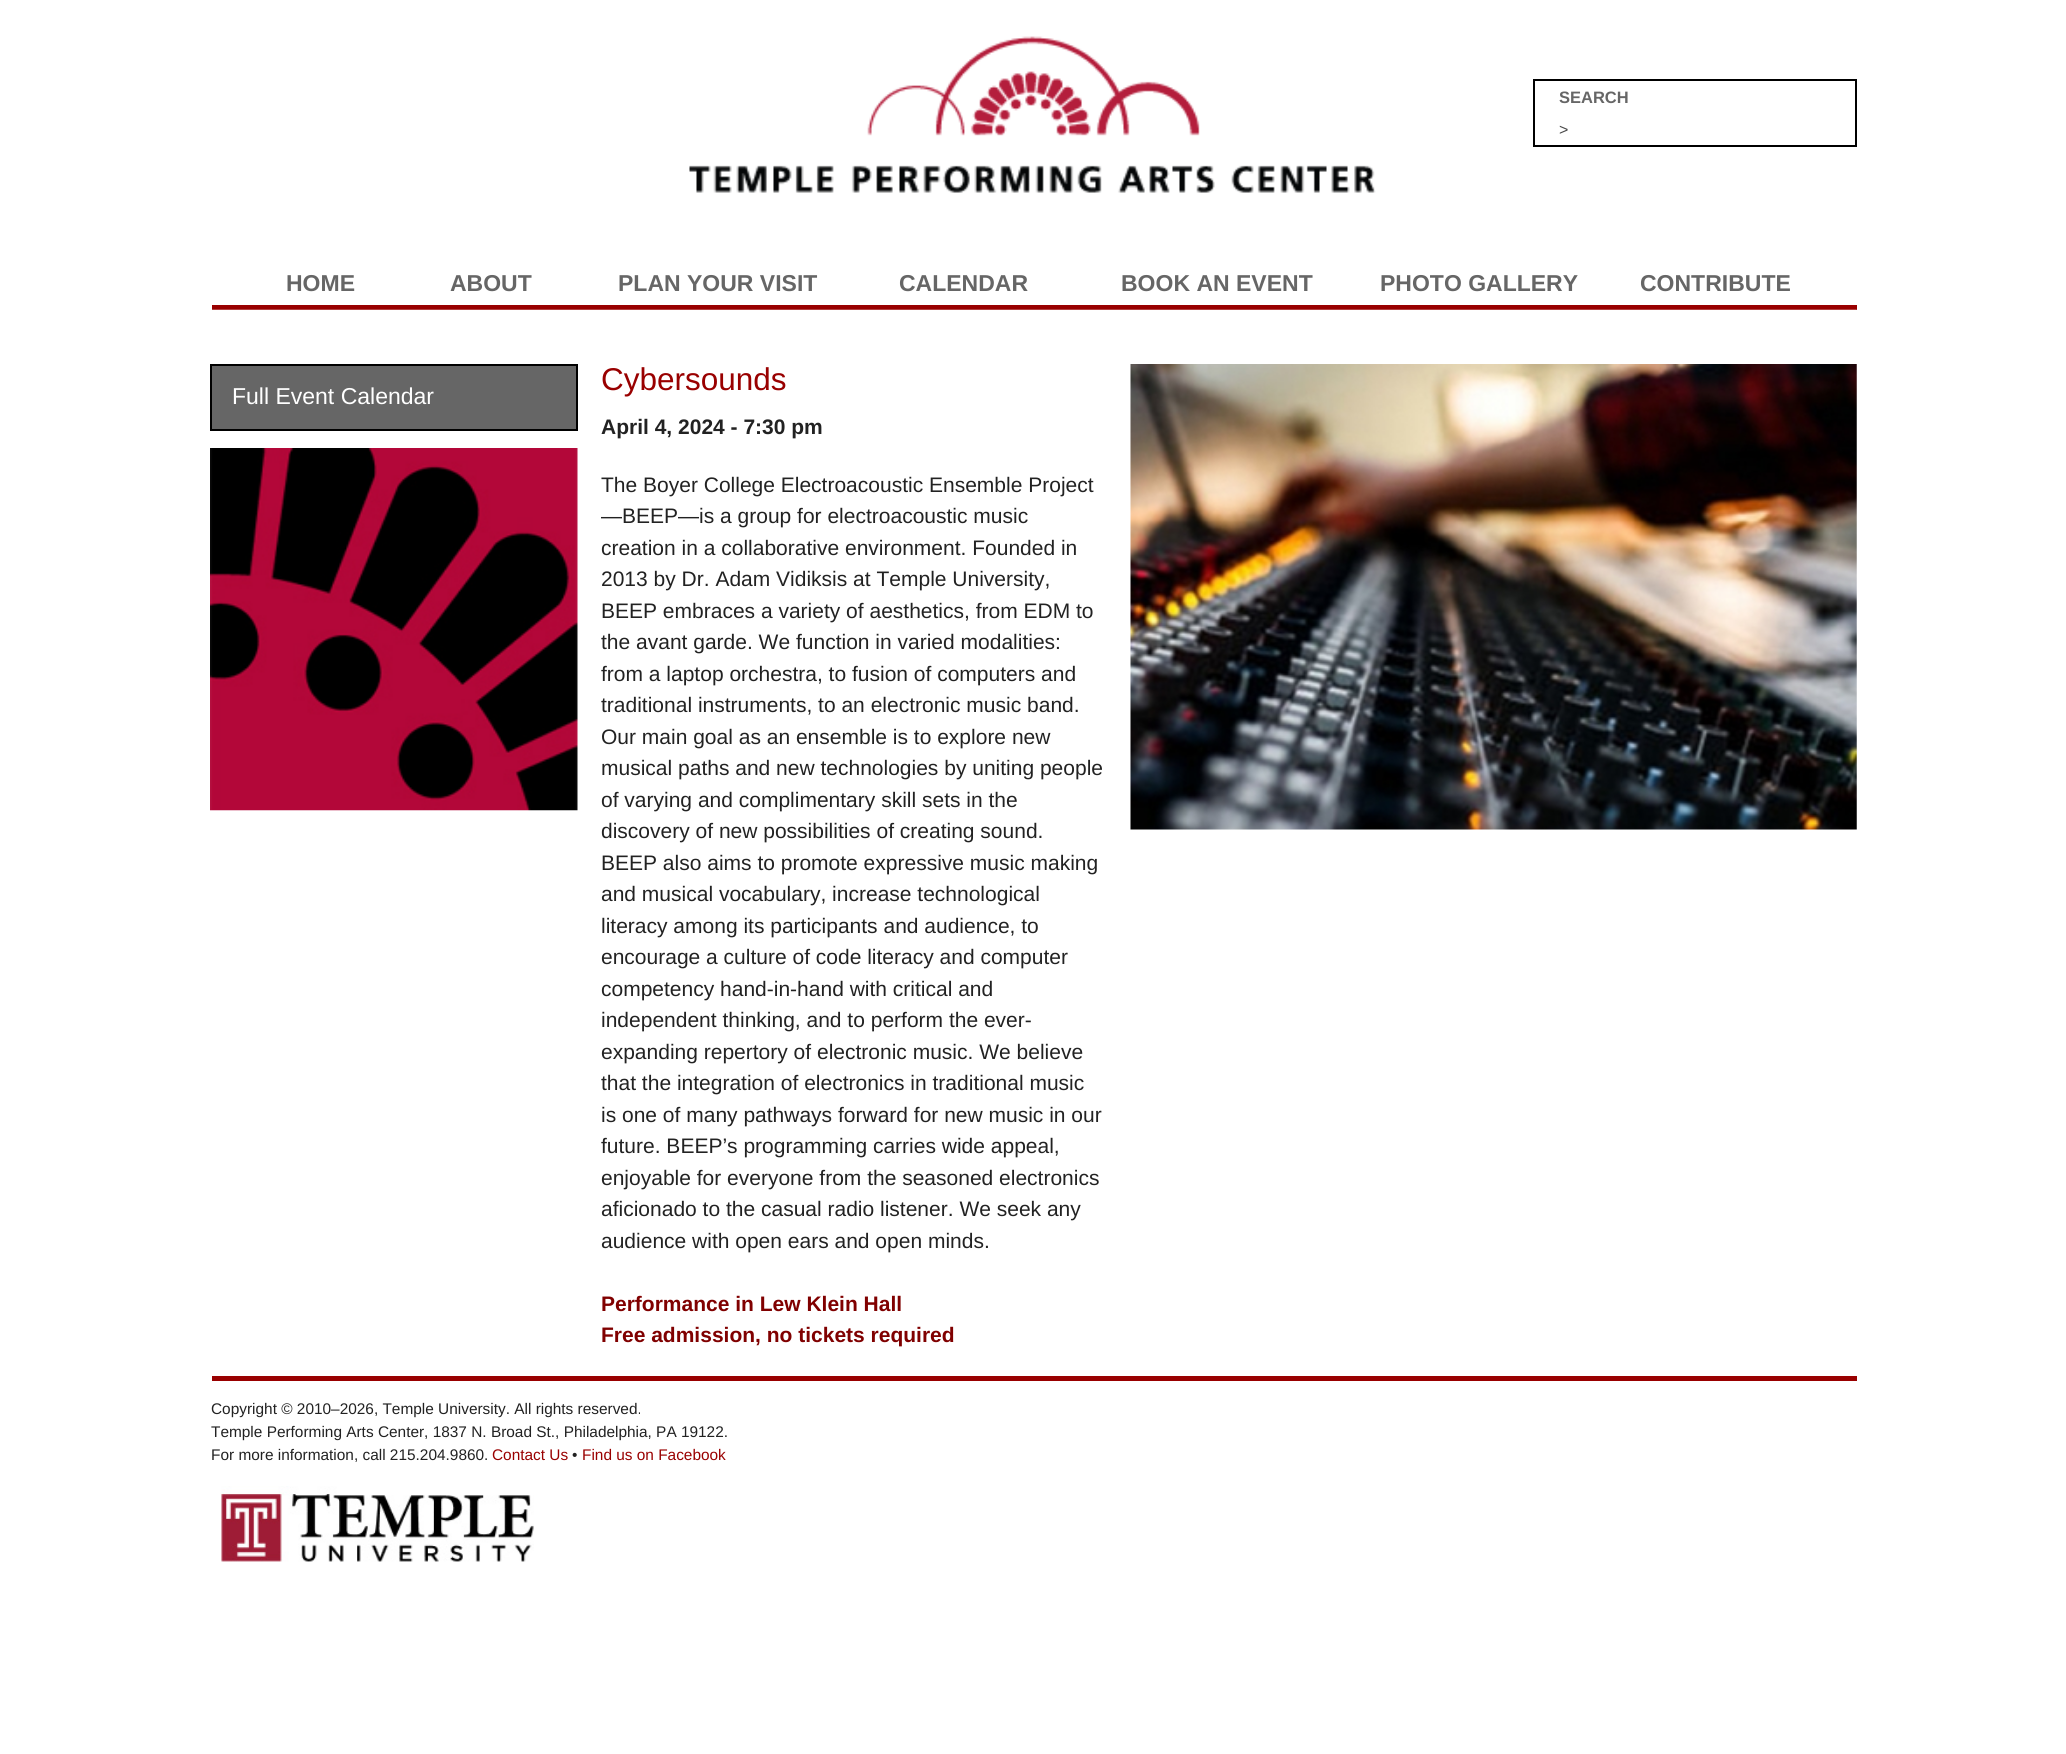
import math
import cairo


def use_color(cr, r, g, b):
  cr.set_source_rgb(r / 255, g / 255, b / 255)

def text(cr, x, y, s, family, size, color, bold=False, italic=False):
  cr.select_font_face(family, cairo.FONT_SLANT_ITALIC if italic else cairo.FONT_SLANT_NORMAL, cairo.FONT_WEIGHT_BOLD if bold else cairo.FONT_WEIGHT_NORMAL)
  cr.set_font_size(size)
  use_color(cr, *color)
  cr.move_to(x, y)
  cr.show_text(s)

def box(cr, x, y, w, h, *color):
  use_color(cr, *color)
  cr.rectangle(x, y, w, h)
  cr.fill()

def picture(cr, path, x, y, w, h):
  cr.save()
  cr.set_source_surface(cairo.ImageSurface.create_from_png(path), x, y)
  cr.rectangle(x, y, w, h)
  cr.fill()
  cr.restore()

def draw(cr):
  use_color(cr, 255, 255, 255)
  cr.paint()
  picture(cr, "img_01.png", 689, 36, 687, 157)
  cr.rectangle(1534, 80, 322, 66)
  use_color(cr, 0, 0, 0)
  cr.stroke()
  box(cr, 212, 305, 1645, 5, 153, 0, 0)
  picture(cr, "img_02.png", 212, 309, 1645, 1)
  box(cr, 212, 366, 364, 63, 102, 102, 102)
  box(cr, 210, 364, 368, 2, 0, 0, 0)
  box(cr, 576, 364, 2, 67, 0, 0, 0)
  box(cr, 210, 364, 2, 67, 0, 0, 0)
  box(cr, 212, 429, 364, 2, 0, 0, 0)
  picture(cr, "img_03.png", 210, 448, 368, 363)
  picture(cr, "img_04.png", 1130, 364, 727, 466)
  box(cr, 212, 1376, 1645, 5, 153, 0, 0)
  picture(cr, "img_05.png", 221, 1486, 313, 76)
  text(cr, 1559, 103, "SEARCH", "Liberation Sans", 16.5, (102, 102, 102), bold=True)
  text(cr, 1559, 135, ">", "Liberation Sans", 16, (73, 73, 73))
  text(cr, 286, 291, "HOME", "Liberation Sans", 23, (102, 102, 102), bold=True)
  text(cr, 450, 291, "ABOUT", "Liberation Sans", 23, (102, 102, 102), bold=True)
  text(cr, 618, 291, "PLAN YOUR VISIT", "Liberation Sans", 23, (102, 102, 102), bold=True)
  text(cr, 899, 291, "CALENDAR", "Liberation Sans", 23, (102, 102, 102), bold=True)
  text(cr, 1121, 291, "BOOK AN EVENT", "Liberation Sans", 23, (102, 102, 102), bold=True)
  text(cr, 1380, 291, "PHOTO GALLERY", "Liberation Sans", 23, (102, 102, 102), bold=True)
  text(cr, 1640, 291, "CONTRIBUTE", "Liberation Sans", 23, (102, 102, 102), bold=True)
  text(cr, 232, 404, "Full Event Calendar", "Liberation Sans", 23, (255, 255, 255))
  text(cr, 601, 390, "Cybersounds", "Liberation Sans", 31.5, (153, 0, 0))
  text(cr, 601, 434, "April 4, 2024 - 7:30 pm", "Liberation Sans", 21, (34, 34, 34), bold=True)
  text(cr, 601, 492, "The Boyer College Electroacoustic Ensemble Project", "Liberation Sans", 21, (34, 34, 34))
  text(cr, 601, 523, "—BEEP—is a group for electroacoustic music", "Liberation Sans", 21, (34, 34, 34))
  text(cr, 601, 555, "creation in a collaborative environment. Founded in", "Liberation Sans", 21, (34, 34, 34))
  text(cr, 601, 586, "2013 by Dr. Adam Vidiksis at Temple University,", "Liberation Sans", 21, (34, 34, 34))
  text(cr, 601, 618, "BEEP embraces a variety of aesthetics, from EDM to", "Liberation Sans", 21, (34, 34, 34))
  text(cr, 601, 649, "the avant garde. We function in varied modalities:", "Liberation Sans", 21, (34, 34, 34))
  text(cr, 601, 681, "from a laptop orchestra, to fusion of computers and", "Liberation Sans", 21, (34, 34, 34))
  text(cr, 601, 712, "traditional instruments, to an electronic music band.", "Liberation Sans", 21, (34, 34, 34))
  text(cr, 601, 744, "Our main goal as an ensemble is to explore new", "Liberation Sans", 21, (34, 34, 34))
  text(cr, 601, 775, "musical paths and new technologies by uniting people", "Liberation Sans", 21, (34, 34, 34))
  text(cr, 601, 807, "of varying and complimentary skill sets in the", "Liberation Sans", 21, (34, 34, 34))
  text(cr, 601, 838, "discovery of new possibilities of creating sound.", "Liberation Sans", 21, (34, 34, 34))
  text(cr, 601, 870, "BEEP also aims to promote expressive music making", "Liberation Sans", 21, (34, 34, 34))
  text(cr, 601, 901, "and musical vocabulary, increase technological", "Liberation Sans", 21, (34, 34, 34))
  text(cr, 601, 933, "literacy among its participants and audience, to", "Liberation Sans", 21, (34, 34, 34))
  text(cr, 601, 964, "encourage a culture of code literacy and computer", "Liberation Sans", 21, (34, 34, 34))
  text(cr, 601, 996, "competency hand-in-hand with critical and", "Liberation Sans", 21, (34, 34, 34))
  text(cr, 601, 1027, "independent thinking, and to perform the ever-", "Liberation Sans", 21, (34, 34, 34))
  text(cr, 601, 1059, "expanding repertory of electronic music. We believe", "Liberation Sans", 21, (34, 34, 34))
  text(cr, 601, 1090, "that the integration of electronics in traditional music", "Liberation Sans", 21, (34, 34, 34))
  text(cr, 601, 1122, "is one of many pathways forward for new music in our", "Liberation Sans", 21, (34, 34, 34))
  text(cr, 601, 1153, "future. BEEP’s programming carries wide appeal,", "Liberation Sans", 21, (34, 34, 34))
  text(cr, 601, 1185, "enjoyable for everyone from the seasoned electronics", "Liberation Sans", 21, (34, 34, 34))
  text(cr, 601, 1216, "aficionado to the casual radio listener. We seek any", "Liberation Sans", 21, (34, 34, 34))
  text(cr, 601, 1248, "audience with open ears and open minds.", "Liberation Sans", 21, (34, 34, 34))
  text(cr, 601, 1311, "Performance in Lew Klein Hall", "Liberation Sans", 21, (128, 0, 0), bold=True)
  text(cr, 601, 1342, "Free admission, no tickets required", "Liberation Sans", 21, (128, 0, 0), bold=True)
  text(cr, 211, 1414, "Copyright © 2010–2026, Temple University. All rights reserved.", "Liberation Sans", 15.4, (34, 34, 34))
  text(cr, 211, 1437, "Temple Performing Arts Center, 1837 N. Broad St., Philadelphia, PA 19122.", "Liberation Sans", 15.4, (34, 34, 34))
  text(cr, 211, 1460, "For more information, call 215.204.9860.", "Liberation Sans", 15.4, (34, 34, 34))
  text(cr, 492, 1460, "Contact Us", "Liberation Sans", 15.4, (153, 0, 0))
  text(cr, 572, 1460, "•", "Liberation Sans", 15.4, (34, 34, 34))
  text(cr, 582, 1460, "Find us on Facebook", "Liberation Sans", 15.4, (153, 0, 0))


surface = cairo.ImageSurface(cairo.FORMAT_RGB24, 2066, 1754)
cr = cairo.Context(surface)
options = cairo.FontOptions()
options.set_hint_metrics(cairo.HINT_METRICS_OFF)
options.set_hint_style(cairo.HINT_STYLE_NONE)
cr.set_font_options(options)
cr.set_miter_limit(4)
draw(cr)
surface.write_to_png("out.png")
